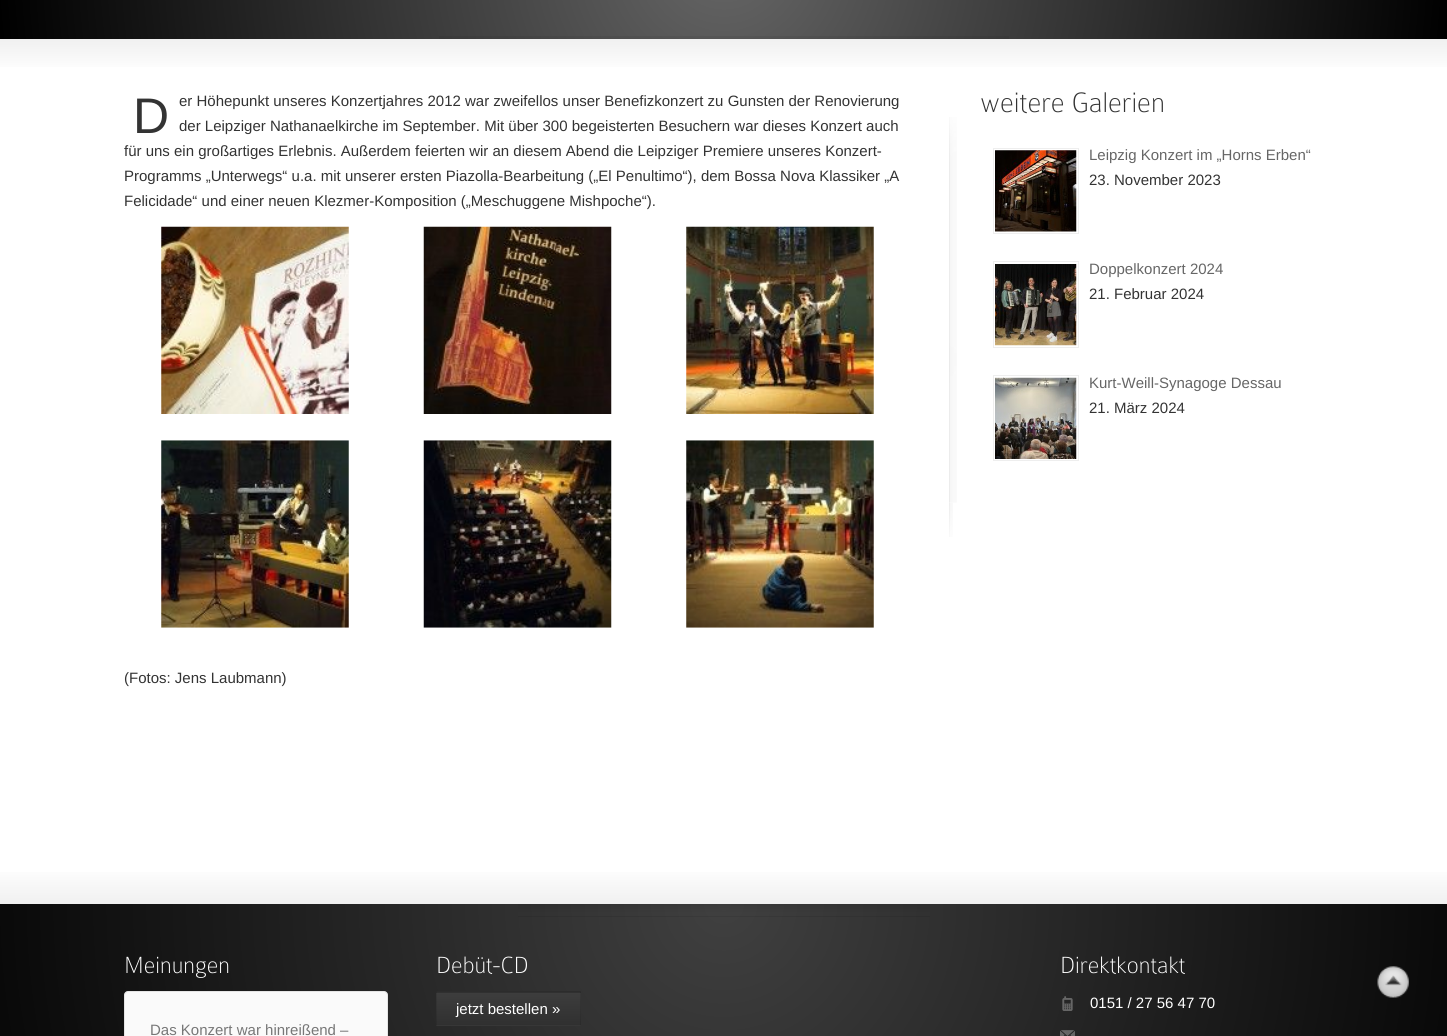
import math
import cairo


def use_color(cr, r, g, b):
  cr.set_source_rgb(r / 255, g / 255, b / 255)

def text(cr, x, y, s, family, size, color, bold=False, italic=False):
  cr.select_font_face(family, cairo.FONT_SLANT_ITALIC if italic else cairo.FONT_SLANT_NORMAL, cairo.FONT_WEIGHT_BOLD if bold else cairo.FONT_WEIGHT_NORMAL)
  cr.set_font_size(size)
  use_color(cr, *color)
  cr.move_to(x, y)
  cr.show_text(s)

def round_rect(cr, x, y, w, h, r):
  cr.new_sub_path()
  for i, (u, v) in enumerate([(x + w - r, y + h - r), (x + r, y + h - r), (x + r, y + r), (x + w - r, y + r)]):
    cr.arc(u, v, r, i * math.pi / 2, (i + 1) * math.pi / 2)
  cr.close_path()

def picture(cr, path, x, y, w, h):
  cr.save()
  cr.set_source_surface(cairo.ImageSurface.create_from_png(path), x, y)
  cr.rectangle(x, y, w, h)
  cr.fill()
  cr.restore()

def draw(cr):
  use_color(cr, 255, 255, 255)
  cr.paint()
  gradient = cairo.RadialGradient(724, -44, 0, 724, -44, 728)
  gradient.add_color_stop_rgba(0, 0.4, 0.4, 0.4, 1)
  gradient.add_color_stop_rgba(1, 0, 0, 0, 1)
  cr.set_source(gradient)
  cr.rectangle(0, 0, 1447, 39)
  cr.fill()
  gradient = cairo.RadialGradient(724, -44, 0, 724, -44, 728)
  gradient.add_color_stop_rgba(0, 0.376, 0.376, 0.376, 1)
  gradient.add_color_stop_rgba(1, 0, 0, 0, 1)
  cr.set_source(gradient)
  cr.rectangle(439, 36, 570, 3)
  cr.fill()
  gradient = cairo.LinearGradient(724, 39, 724, 73)
  gradient.add_color_stop_rgba(0, 0.941, 0.941, 0.941, 1)
  gradient.add_color_stop_rgba(1, 1, 1, 1, 1)
  cr.set_source(gradient)
  cr.rectangle(0, 39, 1447, 28)
  cr.fill()
  picture(cr, "img_01.png", 161, 226, 188, 188)
  picture(cr, "img_02.png", 423, 226, 189, 188)
  picture(cr, "img_03.png", 686, 226, 188, 188)
  picture(cr, "img_04.png", 161, 440, 188, 188)
  picture(cr, "img_05.png", 423, 440, 189, 188)
  picture(cr, "img_06.png", 686, 440, 188, 188)
  picture(cr, "img_07.png", 949, 117, 8, 386)
  cr.rectangle(993.5, 148.5, 85, 85)
  use_color(cr, 238, 238, 238)
  cr.set_line_width(1)
  cr.stroke()
  picture(cr, "img_08.png", 995, 150, 82, 82)
  cr.rectangle(993.5, 261.5, 85, 86)
  cr.stroke()
  picture(cr, "img_09.png", 995, 264, 82, 82)
  cr.rectangle(993.5, 375.5, 85, 85)
  cr.stroke()
  picture(cr, "img_10.png", 995, 377, 82, 82)
  picture(cr, "img_11.png", 949, 503, 4, 34)
  gradient = cairo.LinearGradient(724, 866, 724, 904)
  gradient.add_color_stop_rgba(0, 1, 1, 1, 1)
  gradient.add_color_stop_rgba(1, 0.941, 0.941, 0.941, 1)
  cr.set_source(gradient)
  cr.rectangle(0, 872, 1447, 32)
  cr.fill()
  gradient = cairo.RadialGradient(724, 904, 0, 724, 904, 850)
  gradient.add_color_stop_rgba(0, 0.251, 0.251, 0.251, 1)
  gradient.add_color_stop_rgba(1, 0, 0, 0, 1)
  cr.set_source(gradient)
  cr.rectangle(0, 904, 1447, 132)
  cr.fill()
  picture(cr, "img_12.png", 518, 904, 412, 13)
  use_color(cr, 250, 250, 250)
  round_rect(cr, 124.5, 991.5, 263, 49, 3.5)
  cr.fill_preserve()
  use_color(cr, 229, 229, 229)
  cr.stroke()
  gradient = cairo.LinearGradient(509, 960, 509, 993)
  gradient.add_color_stop_rgba(0, 0.239, 0.239, 0.239, 1)
  gradient.add_color_stop_rgba(1, 0.188, 0.188, 0.188, 1)
  cr.set_source(gradient)
  cr.new_path()
  cr.move_to(437, 991)
  cr.line_to(580, 991)
  cr.curve_to(580.5, 991, 581, 991.5, 581, 992)
  cr.line_to(581, 993)
  cr.line_to(436, 993)
  cr.line_to(436, 992)
  cr.curve_to(436, 991.5, 436.5, 991, 437, 991)
  cr.close_path()
  cr.fill()
  gradient = cairo.LinearGradient(509, 993, 509, 1025)
  gradient.add_color_stop_rgba(0, 0.239, 0.239, 0.239, 1)
  gradient.add_color_stop_rgba(1, 0.188, 0.188, 0.188, 1)
  cr.set_source(gradient)
  cr.rectangle(436, 993, 145, 32)
  cr.fill()
  gradient = cairo.LinearGradient(509, 1025, 509, 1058)
  gradient.add_color_stop_rgba(0, 0.239, 0.239, 0.239, 1)
  gradient.add_color_stop_rgba(1, 0.188, 0.188, 0.188, 1)
  cr.set_source(gradient)
  cr.new_path()
  cr.move_to(436, 1025)
  cr.line_to(581, 1025)
  cr.curve_to(581, 1025.5, 580.5, 1026, 580, 1026)
  cr.line_to(437, 1026)
  cr.curve_to(436.5, 1026, 436, 1025.5, 436, 1025)
  cr.close_path()
  cr.fill()
  cr.rectangle(436.5, 991.5, 144, 34)
  cr.set_source_rgba(0, 0, 0, 0.1)
  cr.stroke()
  picture(cr, "img_13.png", 1062, 996, 11, 15)
  picture(cr, "img_14.png", 1060, 1030, 15, 6)
  picture(cr, "img_15.png", 1377, 966, 32, 32)
  text(cr, 133, 133, "D", "Liberation Sans", 50, (51, 51, 51))
  text(cr, 179, 106, "er Höhepunkt unseres Konzertjahres 2012 war zweifellos unser Benefizkonzert zu Gunsten der Renovierung", "Liberation Sans", 15, (51, 51, 51))
  text(cr, 179, 131, "der Leipziger Nathanaelkirche im September. Mit über 300 begeisterten Besuchern war dieses Konzert auch", "Liberation Sans", 15, (51, 51, 51))
  text(cr, 124, 156, "für uns ein großartiges Erlebnis. Außerdem feierten wir an diesem Abend die Leipziger Premiere unseres Konzert-", "Liberation Sans", 15, (51, 51, 51))
  text(cr, 124, 181, "Programms „Unterwegs“ u.a. mit unserer ersten Piazolla-Bearbeitung („El Penultimo“), dem Bossa Nova Klassiker „A", "Liberation Sans", 15, (51, 51, 51))
  text(cr, 124, 206, "Felicidade“ und einer neuen Klezmer-Komposition („Meschuggene Mishpoche“).", "Liberation Sans", 15, (51, 51, 51))
  text(cr, 124, 683, "(Fotos: Jens Laubmann)", "Liberation Sans", 15, (51, 51, 51))
  text(cr, 980, 112, "weitere Galerien", "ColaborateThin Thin", 30, (51, 51, 51))
  text(cr, 1089, 160, "Leipzig Konzert im „Horns Erben“", "Liberation Sans", 15, (102, 102, 102))
  text(cr, 1089, 185, "23. November 2023", "Liberation Sans", 15, (51, 51, 51))
  text(cr, 1089, 274, "Doppelkonzert 2024", "Liberation Sans", 15, (102, 102, 102))
  text(cr, 1089, 299, "21. Februar 2024", "Liberation Sans", 15, (51, 51, 51))
  text(cr, 1089, 388, "Kurt-Weill-Synagoge Dessau", "Liberation Sans", 15, (102, 102, 102))
  text(cr, 1089, 413, "21. März 2024", "Liberation Sans", 15, (51, 51, 51))
  text(cr, 124, 973, "Meinungen", "ColaborateThin Thin", 25, (255, 255, 255))
  text(cr, 150, 1035, "Das Konzert war hinreißend –", "Liberation Sans", 15, (119, 119, 119))
  text(cr, 436, 973, "Debüt-CD", "ColaborateThin Thin", 25, (255, 255, 255))
  text(cr, 456, 1014, "jetzt bestellen »", "Liberation Sans", 15, (255, 255, 255))
  text(cr, 1060, 973, "Direktkontakt", "ColaborateThin Thin", 25, (255, 255, 255))
  text(cr, 1090, 1008, "0151 / 27 56 47 70", "Liberation Sans", 15, (255, 255, 255))


surface = cairo.ImageSurface(cairo.FORMAT_RGB24, 1447, 1036)
cr = cairo.Context(surface)
options = cairo.FontOptions()
options.set_hint_metrics(cairo.HINT_METRICS_OFF)
options.set_hint_style(cairo.HINT_STYLE_NONE)
cr.set_font_options(options)
cr.set_miter_limit(4)
draw(cr)
surface.write_to_png("out.png")
